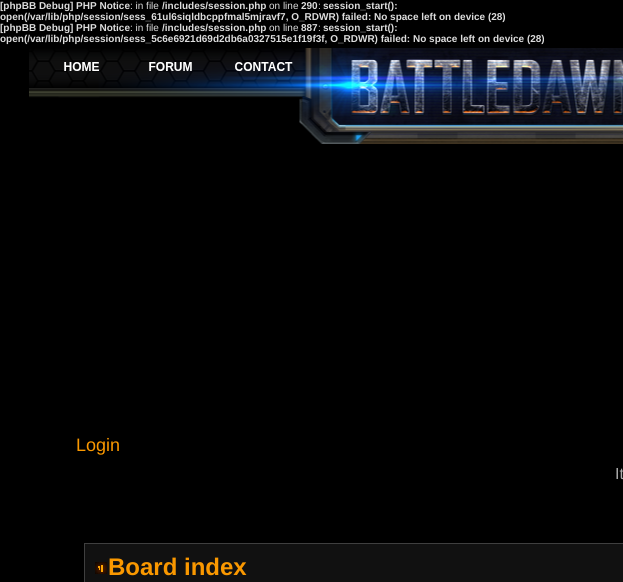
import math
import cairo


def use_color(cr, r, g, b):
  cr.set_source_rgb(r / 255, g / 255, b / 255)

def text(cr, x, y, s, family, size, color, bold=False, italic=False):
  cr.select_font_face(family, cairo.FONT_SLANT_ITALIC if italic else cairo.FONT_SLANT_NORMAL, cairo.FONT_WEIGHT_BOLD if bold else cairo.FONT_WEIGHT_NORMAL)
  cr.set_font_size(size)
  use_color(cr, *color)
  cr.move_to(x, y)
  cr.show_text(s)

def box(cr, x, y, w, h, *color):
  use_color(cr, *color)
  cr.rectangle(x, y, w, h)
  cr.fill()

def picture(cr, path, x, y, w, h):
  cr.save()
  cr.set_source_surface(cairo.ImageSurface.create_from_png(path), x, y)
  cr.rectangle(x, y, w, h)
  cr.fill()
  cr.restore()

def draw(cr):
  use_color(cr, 0, 0, 0)
  cr.paint()
  picture(cr, "img_01.png", 29, 48, 594, 96)
  box(cr, 84, 543, 539, 39, 63, 63, 63)
  box(cr, 85, 544, 538, 38, 17, 17, 17)
  picture(cr, "img_02.png", 95, 562, 12, 12)
  text(cr, 0, 9, "[phpBB Debug] PHP Notice", "Liberation Sans", 10, (221, 221, 221), bold=True)
  text(cr, 130, 9, ": in file", "Liberation Sans", 10, (221, 221, 221))
  text(cr, 162, 9, "/includes/session.php", "Liberation Sans", 10, (221, 221, 221), bold=True)
  text(cr, 269, 9, "on line", "Liberation Sans", 10, (221, 221, 221))
  text(cr, 301, 9, "290", "Liberation Sans", 10, (221, 221, 221), bold=True)
  text(cr, 318, 9, ":", "Liberation Sans", 10, (221, 221, 221))
  text(cr, 323, 9, "session_start():", "Liberation Sans", 10, (221, 221, 221), bold=True)
  text(cr, 0, 20, "open(/var/lib/php/session/sess_61ul6siqldbcppfmal5mjravf7, O_RDWR) failed: No space left on device (28)", "Liberation Sans", 10, (221, 221, 221), bold=True)
  text(cr, 0, 31, "[phpBB Debug] PHP Notice", "Liberation Sans", 10, (221, 221, 221), bold=True)
  text(cr, 130, 31, ": in file", "Liberation Sans", 10, (221, 221, 221))
  text(cr, 162, 31, "/includes/session.php", "Liberation Sans", 10, (221, 221, 221), bold=True)
  text(cr, 269, 31, "on line", "Liberation Sans", 10, (221, 221, 221))
  text(cr, 301, 31, "887", "Liberation Sans", 10, (221, 221, 221), bold=True)
  text(cr, 318, 31, ":", "Liberation Sans", 10, (221, 221, 221))
  text(cr, 323, 31, "session_start():", "Liberation Sans", 10, (221, 221, 221), bold=True)
  text(cr, 0, 42, "open(/var/lib/php/session/sess_5c6e6921d69d2db6a0327515e1f19f3f, O_RDWR) failed: No space left on device (28)", "Liberation Sans", 10, (221, 221, 221), bold=True)
  text(cr, 76, 451, "Login", "Liberation Sans", 18, (250, 152, 0))
  text(cr, 615, 479, "It", "Liberation Sans", 16, (171, 171, 171))
  text(cr, 108, 575, "Board index", "Liberation Sans", 24, (250, 152, 0), bold=True)


surface = cairo.ImageSurface(cairo.FORMAT_RGB24, 623, 582)
cr = cairo.Context(surface)
options = cairo.FontOptions()
options.set_hint_metrics(cairo.HINT_METRICS_OFF)
options.set_hint_style(cairo.HINT_STYLE_NONE)
cr.set_font_options(options)
cr.set_miter_limit(4)
draw(cr)
surface.write_to_png("out.png")
